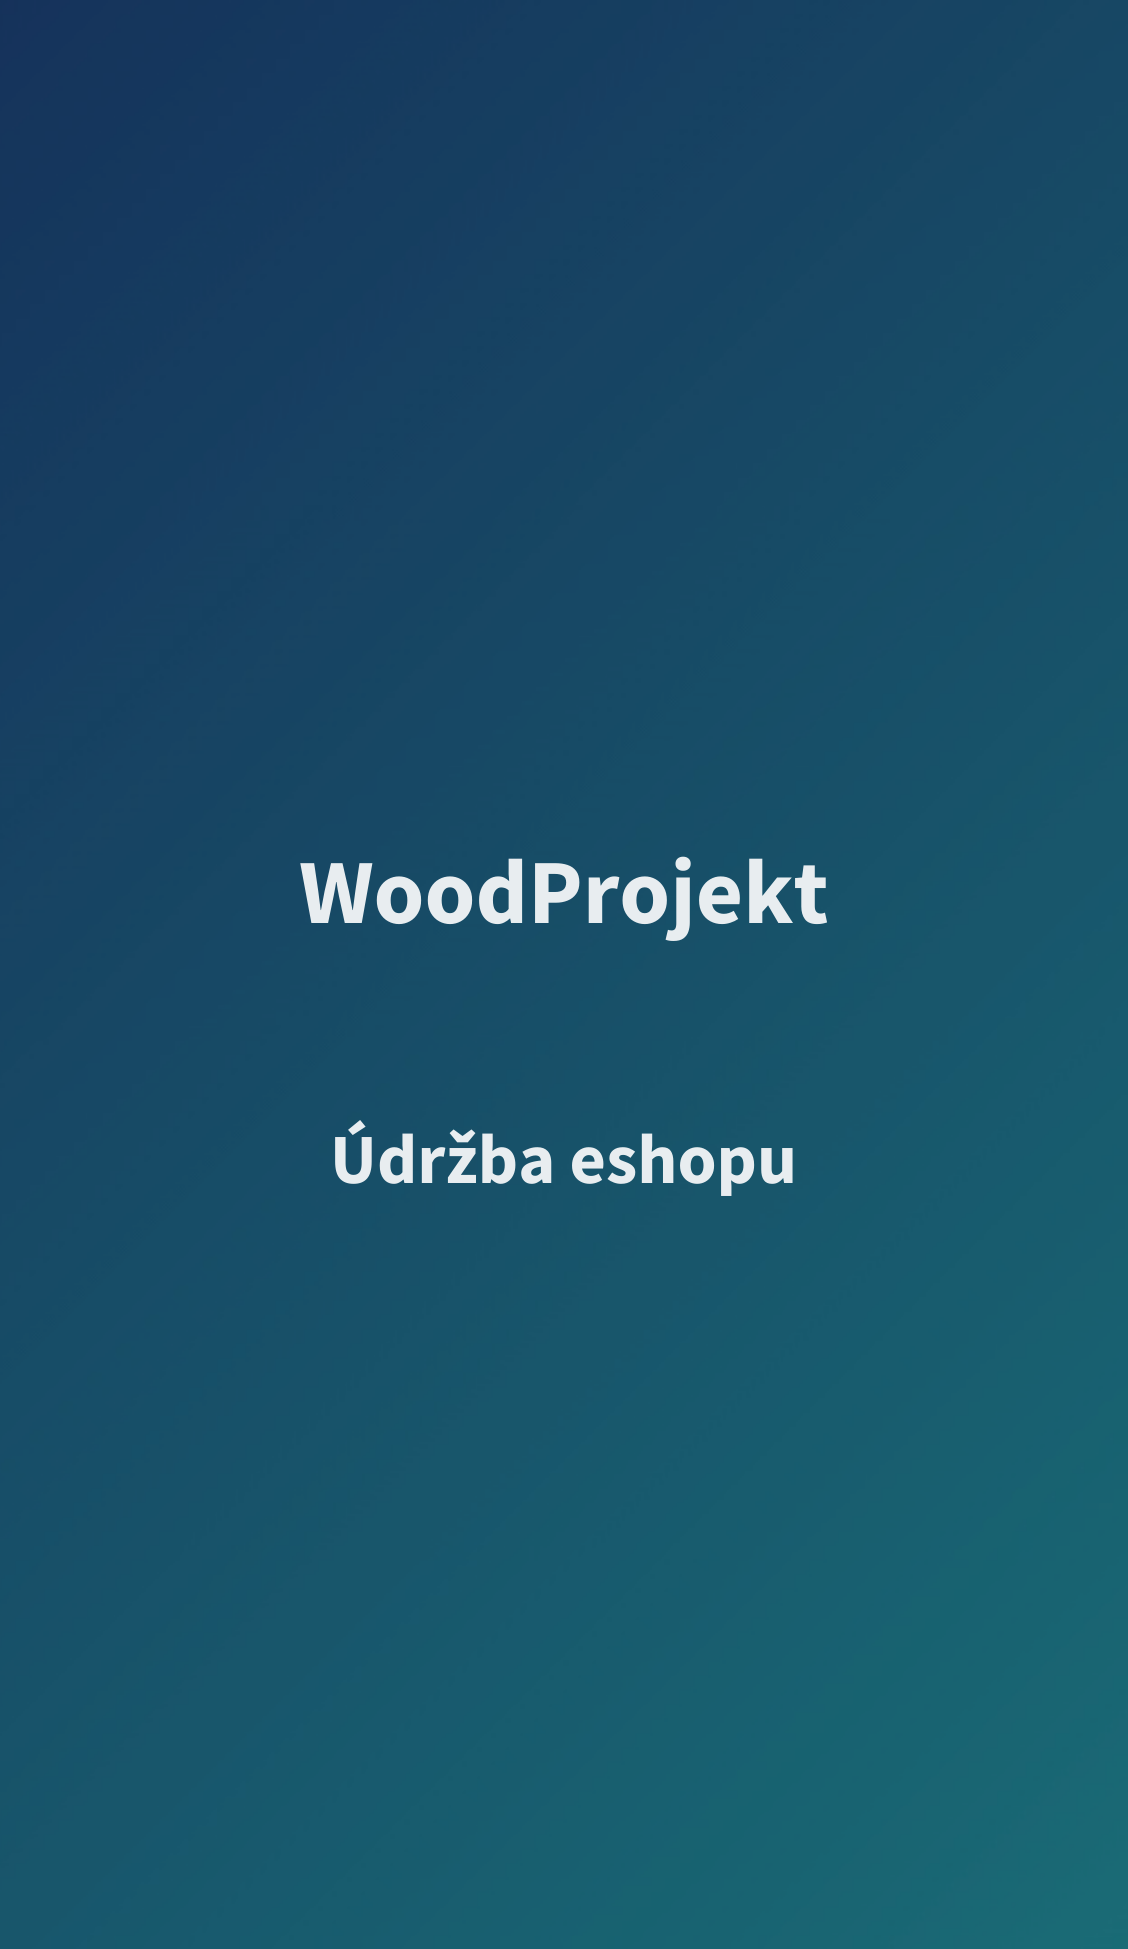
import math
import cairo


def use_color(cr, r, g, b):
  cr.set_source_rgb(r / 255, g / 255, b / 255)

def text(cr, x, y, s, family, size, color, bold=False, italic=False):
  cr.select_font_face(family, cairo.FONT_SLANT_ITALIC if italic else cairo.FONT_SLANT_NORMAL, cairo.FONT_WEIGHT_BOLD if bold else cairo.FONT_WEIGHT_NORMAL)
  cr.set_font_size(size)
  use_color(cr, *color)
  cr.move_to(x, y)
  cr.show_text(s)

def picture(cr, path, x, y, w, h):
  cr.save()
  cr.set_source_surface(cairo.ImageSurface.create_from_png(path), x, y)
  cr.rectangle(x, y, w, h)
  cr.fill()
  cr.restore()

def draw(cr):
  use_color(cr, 255, 255, 255)
  cr.paint()
  picture(cr, "img_01.png", 0, 0, 1128, 1949)
  text(cr, 299, 923, "WoodProjekt", "Source Sans Pro", 91.75, (232, 237, 240), bold=True)
  text(cr, 330, 1183, "Údržba eshopu", "Source Sans Pro", 70.5, (232, 237, 240), bold=True)


surface = cairo.ImageSurface(cairo.FORMAT_RGB24, 1128, 1949)
cr = cairo.Context(surface)
options = cairo.FontOptions()
options.set_hint_metrics(cairo.HINT_METRICS_OFF)
options.set_hint_style(cairo.HINT_STYLE_NONE)
cr.set_font_options(options)
cr.set_miter_limit(4)
draw(cr)
surface.write_to_png("out.png")
